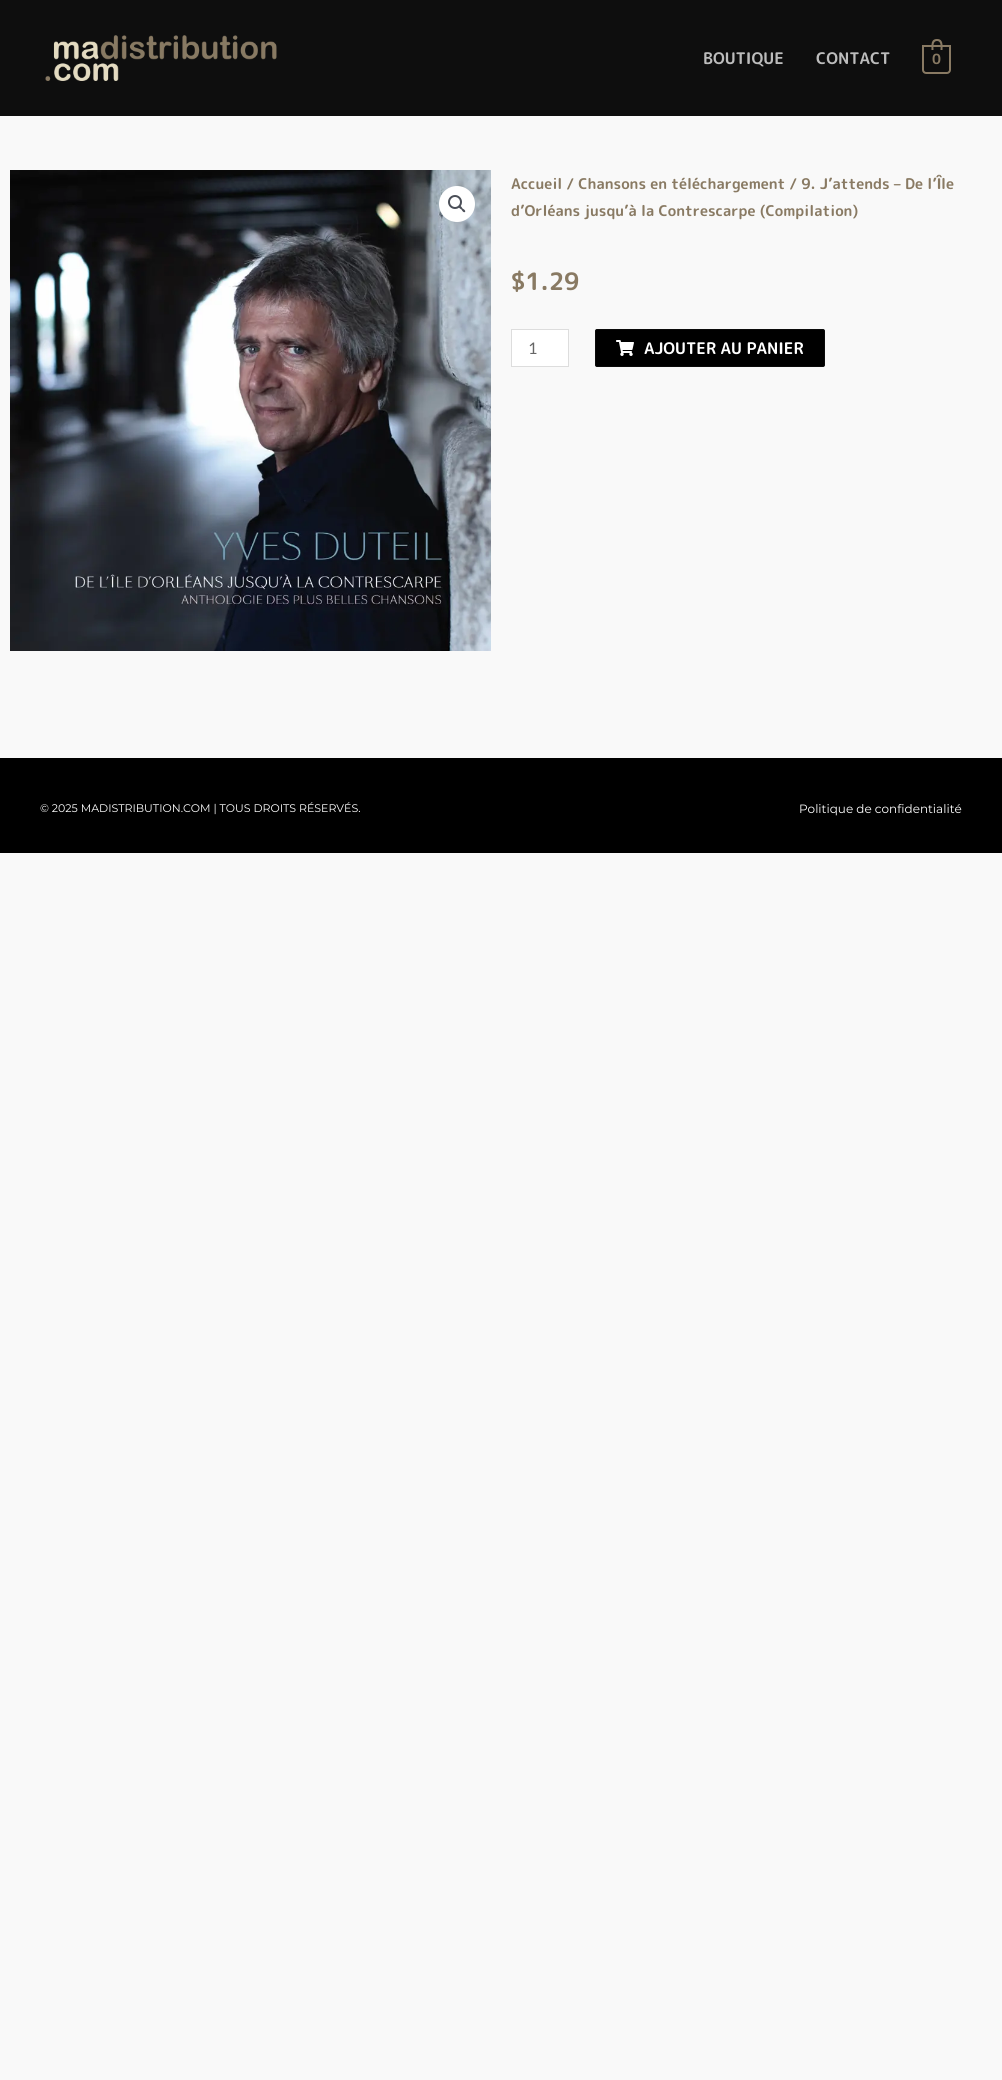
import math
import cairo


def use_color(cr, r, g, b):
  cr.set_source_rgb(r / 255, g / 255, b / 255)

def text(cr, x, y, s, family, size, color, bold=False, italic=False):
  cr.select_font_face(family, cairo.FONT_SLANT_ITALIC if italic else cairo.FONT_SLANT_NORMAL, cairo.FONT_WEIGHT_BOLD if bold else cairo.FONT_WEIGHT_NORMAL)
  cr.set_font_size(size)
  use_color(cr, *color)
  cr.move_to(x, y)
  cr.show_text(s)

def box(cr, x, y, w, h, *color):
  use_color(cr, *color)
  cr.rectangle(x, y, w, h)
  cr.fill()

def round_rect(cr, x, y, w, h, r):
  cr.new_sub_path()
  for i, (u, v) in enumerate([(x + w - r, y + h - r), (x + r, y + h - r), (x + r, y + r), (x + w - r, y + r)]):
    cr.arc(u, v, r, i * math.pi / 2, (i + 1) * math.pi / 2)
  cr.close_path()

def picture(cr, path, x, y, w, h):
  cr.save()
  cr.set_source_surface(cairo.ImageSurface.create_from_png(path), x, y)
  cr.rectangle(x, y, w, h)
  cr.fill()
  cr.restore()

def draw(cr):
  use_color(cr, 249, 249, 249)
  cr.paint()
  box(cr, 0, 0, 1002, 116, 14, 14, 14)
  picture(cr, "img_01.png", 45, 35, 232, 46)
  cr.new_path()
  cr.move_to(923, 46)
  cr.line_to(950, 46)
  cr.line_to(950, 70)
  cr.curve_to(950, 71.5, 948.5, 73, 947, 73)
  cr.line_to(926, 73)
  cr.curve_to(924.5, 73, 923, 71.5, 923, 70)
  cr.close_path()
  use_color(cr, 137, 122, 99)
  cr.stroke()
  cr.set_fill_rule(cairo.FILL_RULE_EVEN_ODD)
  cr.new_path()
  cr.move_to(937, 39)
  cr.curve_to(943.5, 39, 942.5, 45.5, 942.5, 50)
  cr.line_to(931.5, 50)
  cr.curve_to(931.5, 45.5, 930.5, 39, 937, 39)
  cr.close_path()
  cr.move_to(937, 41)
  cr.curve_to(941.5, 41, 940.5, 47, 940.5, 50)
  cr.line_to(933.5, 50)
  cr.curve_to(933.5, 47, 932.5, 41, 937, 41)
  cr.close_path()
  cr.fill()
  picture(cr, "img_02.png", 10, 170, 481, 481)
  use_color(cr, 255, 255, 255)
  cr.arc(457, 204, 18, 0, 2 * math.pi)
  cr.fill()
  cr.arc(455, 202, 6, 0, 2 * math.pi)
  use_color(cr, 75, 79, 88)
  cr.stroke()
  cr.set_fill_rule(cairo.FILL_RULE_WINDING)
  cr.new_path()
  cr.move_to(459, 206)
  cr.curve_to(460.5, 205, 462, 207.5, 462.5, 208.5)
  cr.curve_to(463.5, 209, 466, 210.5, 465, 212)
  cr.curve_to(463.5, 213, 462, 210.5, 461.5, 209.5)
  cr.curve_to(460.5, 209, 458, 207.5, 459, 206)
  cr.close_path()
  cr.fill()
  use_color(cr, 255, 255, 255)
  cr.rectangle(511.5, 329.5, 57, 37)
  cr.fill_preserve()
  use_color(cr, 221, 221, 221)
  cr.set_line_width(1)
  cr.stroke()
  use_color(cr, 0, 0, 0)
  round_rect(cr, 595.5, 329.5, 229, 37, 1.5)
  cr.fill_preserve()
  use_color(cr, 11, 11, 11)
  cr.stroke()
  picture(cr, "img_03.png", 616, 340, 18, 16)
  box(cr, 0, 758, 1002, 95, 0, 0, 0)
  text(cr, 703, 64, "BOUTIQUE", "Rounded Mplus 1c Bold", 16, (188, 188, 188), bold=True)
  text(cr, 816, 64, "CONTACT", "Rounded Mplus 1c Bold", 16, (188, 188, 188), bold=True)
  text(cr, 932, 64, "0", "Rounded Mplus 1c Bold", 14, (137, 122, 99), bold=True)
  text(cr, 511, 189, "Accueil / Chansons en téléchargement / 9. J’attends – De l’Île", "Rounded Mplus 1c Bold", 14.75, (137, 122, 99), bold=True)
  text(cr, 511, 216, "d’Orléans jusqu’à la Contrescarpe (Compilation)", "Rounded Mplus 1c Bold", 14.75, (137, 122, 99), bold=True)
  text(cr, 511, 290, "$1.29", "Rounded Mplus 1c Bold", 24, (137, 122, 99), bold=True)
  text(cr, 528, 354, "1", "Lato", 16, (102, 102, 102))
  text(cr, 644, 354, "AJOUTER AU PANIER", "Rounded Mplus 1c Bold", 16, (255, 255, 255), bold=True)
  text(cr, 40, 812, "© 2025 MADISTRIBUTION.COM | TOUS DROITS RÉSERVÉS.", "Montserrat", 11, (255, 255, 255))
  text(cr, 799, 813, "Politique de confidentialité", "Montserrat", 12, (255, 255, 255))


surface = cairo.ImageSurface(cairo.FORMAT_RGB24, 1002, 2080)
cr = cairo.Context(surface)
options = cairo.FontOptions()
options.set_hint_metrics(cairo.HINT_METRICS_OFF)
options.set_hint_style(cairo.HINT_STYLE_NONE)
cr.set_font_options(options)
cr.set_miter_limit(4)
draw(cr)
surface.write_to_png("out.png")
